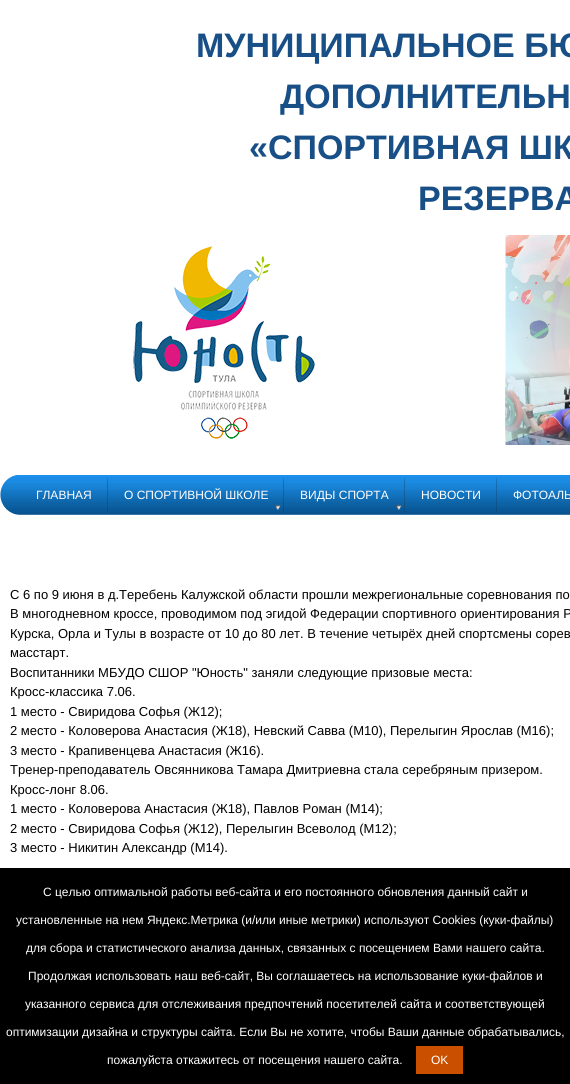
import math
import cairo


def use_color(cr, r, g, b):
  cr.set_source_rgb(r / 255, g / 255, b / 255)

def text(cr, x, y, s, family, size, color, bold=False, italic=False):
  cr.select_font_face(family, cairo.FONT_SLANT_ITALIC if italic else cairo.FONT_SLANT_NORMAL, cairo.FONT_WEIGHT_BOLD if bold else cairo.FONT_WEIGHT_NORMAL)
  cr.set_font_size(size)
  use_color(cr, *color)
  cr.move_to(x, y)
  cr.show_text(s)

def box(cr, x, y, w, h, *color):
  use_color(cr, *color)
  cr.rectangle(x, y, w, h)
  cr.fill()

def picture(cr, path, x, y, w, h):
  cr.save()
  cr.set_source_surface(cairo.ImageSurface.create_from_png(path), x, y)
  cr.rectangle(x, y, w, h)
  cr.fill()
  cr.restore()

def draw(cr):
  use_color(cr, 255, 255, 255)
  cr.paint()
  picture(cr, "img_01.png", 133, 246, 182, 193)
  picture(cr, "img_02.png", 505, 235, 65, 210)
  picture(cr, "img_03.png", 0, 475, 20, 40)
  picture(cr, "img_04.png", 20, 475, 550, 40)
  picture(cr, "img_05.png", 107, 477, 1, 37)
  picture(cr, "img_06.png", 274, 477, 10, 37)
  picture(cr, "img_06.png", 395, 477, 10, 37)
  picture(cr, "img_05.png", 496, 477, 1, 37)
  box(cr, 0, 868, 570, 216, 0, 0, 0)
  box(cr, 416, 1046, 47, 28, 202, 80, 0)
  text(cr, 196, 57, "МУНИЦИПАЛЬНОЕ БЮ", "Liberation Sans", 34, (23, 79, 134), bold=True)
  text(cr, 280, 108, "ДОПОЛНИТЕЛЬН", "Liberation Sans", 34, (23, 79, 134), bold=True)
  text(cr, 249, 159, "«СПОРТИВНАЯ ШК", "Liberation Sans", 34, (23, 79, 134), bold=True)
  text(cr, 418, 210, "РЕЗЕРВА", "Liberation Sans", 34, (23, 79, 134), bold=True)
  text(cr, 36, 499, "ГЛАВНАЯ", "Liberation Sans", 12, (255, 255, 255))
  text(cr, 124, 499, "О СПОРТИВНОЙ ШКОЛЕ", "Liberation Sans", 12, (255, 255, 255))
  text(cr, 300, 499, "ВИДЫ СПОРТА", "Liberation Sans", 12, (255, 255, 255))
  text(cr, 421, 499, "НОВОСТИ", "Liberation Sans", 12, (255, 255, 255))
  text(cr, 513, 499, "ФОТОАЛЬ", "Liberation Sans", 12, (255, 255, 255))
  text(cr, 10, 599, "С 6 по 9 июня в д.Теребень Калужской области прошли межрегиональные соревнования по", "Liberation Sans", 13, (0, 0, 0))
  text(cr, 10, 618, "В многодневном кроссе, проводимом под эгидой Федерации спортивного ориентирования Р", "Liberation Sans", 13, (0, 0, 0))
  text(cr, 10, 638, "Курска, Орла и Тулы в возрасте от 10 до 80 лет. В течение четырёх дней спортсмены сорев", "Liberation Sans", 13, (0, 0, 0))
  text(cr, 10, 657, "масстарт.", "Liberation Sans", 13, (0, 0, 0))
  text(cr, 10, 677, "Воспитанники МБУДО СШОР \"Юность\" заняли следующие призовые места:", "Liberation Sans", 13, (0, 0, 0))
  text(cr, 10, 696, "Кросс-классика 7.06.", "Liberation Sans", 13, (0, 0, 0))
  text(cr, 10, 716, "1 место - Свиридова Софья (Ж12);", "Liberation Sans", 13, (0, 0, 0))
  text(cr, 10, 735, "2 место - Коловерова Анастасия (Ж18), Невский Савва (М10), Перелыгин Ярослав (М16);", "Liberation Sans", 13, (0, 0, 0))
  text(cr, 10, 755, "3 место - Крапивенцева Анастасия (Ж16).", "Liberation Sans", 13, (0, 0, 0))
  text(cr, 10, 774, "Тренер-преподаватель Овсянникова Тамара Дмитриевна стала серебряным призером.", "Liberation Sans", 13, (0, 0, 0))
  text(cr, 10, 794, "Кросс-лонг 8.06.", "Liberation Sans", 13, (0, 0, 0))
  text(cr, 10, 813, "1 место - Коловерова Анастасия (Ж18), Павлов Роман (М14);", "Liberation Sans", 13, (0, 0, 0))
  text(cr, 10, 833, "2 место - Свиридова Софья (Ж12), Перелыгин Всеволод (М12);", "Liberation Sans", 13, (0, 0, 0))
  text(cr, 10, 852, "3 место - Никитин Александр (М14).", "Liberation Sans", 13, (0, 0, 0))
  text(cr, 43, 896, "С целью оптимальной работы веб-сайта и его постоянного обновления данный сайт и", "Liberation Sans", 12, (255, 255, 255))
  text(cr, 16, 924, "установленные на нем Яндекс.Метрика (и/или иные метрики) используют Cookies (куки-файлы)", "Liberation Sans", 12, (255, 255, 255))
  text(cr, 26, 952, "для сбора и статистического анализа данных, связанных с посещением Вами нашего сайта.", "Liberation Sans", 12, (255, 255, 255))
  text(cr, 28, 980, "Продолжая использовать наш веб-сайт, Вы соглашаетесь на использование куки-файлов и", "Liberation Sans", 12, (255, 255, 255))
  text(cr, 25, 1008, "указанного сервиса для отслеживания предпочтений посетителей сайта и соответствующей", "Liberation Sans", 12, (255, 255, 255))
  text(cr, 6, 1036, "оптимизации дизайна и структуры сайта. Если Вы не хотите, чтобы Ваши данные обрабатывались,", "Liberation Sans", 12, (255, 255, 255))
  text(cr, 107, 1064, "пожалуйста откажитесь от посещения нашего сайта.", "Liberation Sans", 12, (255, 255, 255))
  text(cr, 431, 1064, "OK", "Liberation Sans", 12, (255, 255, 255))


surface = cairo.ImageSurface(cairo.FORMAT_RGB24, 570, 1084)
cr = cairo.Context(surface)
options = cairo.FontOptions()
options.set_hint_metrics(cairo.HINT_METRICS_OFF)
options.set_hint_style(cairo.HINT_STYLE_NONE)
cr.set_font_options(options)
cr.set_miter_limit(4)
draw(cr)
surface.write_to_png("out.png")
